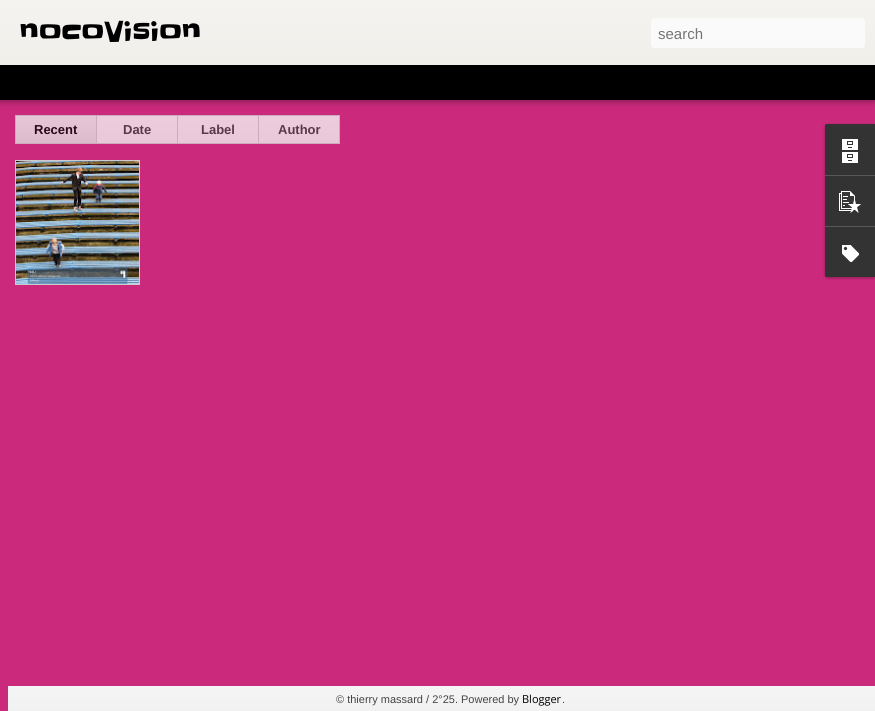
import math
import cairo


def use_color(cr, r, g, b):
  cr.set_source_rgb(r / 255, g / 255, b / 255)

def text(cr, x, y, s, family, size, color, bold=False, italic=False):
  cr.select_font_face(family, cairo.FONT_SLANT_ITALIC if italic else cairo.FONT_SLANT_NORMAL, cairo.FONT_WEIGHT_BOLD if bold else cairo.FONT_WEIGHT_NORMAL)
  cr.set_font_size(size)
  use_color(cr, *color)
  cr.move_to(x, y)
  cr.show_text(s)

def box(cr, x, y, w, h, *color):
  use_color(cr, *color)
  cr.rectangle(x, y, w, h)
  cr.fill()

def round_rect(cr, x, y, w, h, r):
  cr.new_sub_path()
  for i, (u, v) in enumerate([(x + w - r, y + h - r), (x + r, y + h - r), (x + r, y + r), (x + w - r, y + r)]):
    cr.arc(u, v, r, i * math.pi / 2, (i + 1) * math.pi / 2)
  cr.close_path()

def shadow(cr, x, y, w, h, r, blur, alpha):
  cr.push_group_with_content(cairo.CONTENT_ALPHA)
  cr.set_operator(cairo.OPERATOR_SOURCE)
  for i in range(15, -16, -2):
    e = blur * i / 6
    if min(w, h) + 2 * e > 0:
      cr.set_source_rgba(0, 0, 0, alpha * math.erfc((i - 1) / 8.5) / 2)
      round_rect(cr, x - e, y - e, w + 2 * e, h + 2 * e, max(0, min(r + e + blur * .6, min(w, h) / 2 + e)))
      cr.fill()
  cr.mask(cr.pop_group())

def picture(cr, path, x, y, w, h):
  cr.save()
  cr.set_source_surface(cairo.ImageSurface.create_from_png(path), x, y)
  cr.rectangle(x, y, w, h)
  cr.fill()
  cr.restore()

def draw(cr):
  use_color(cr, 203, 41, 123)
  cr.paint()
  use_color(cr, 0, 0, 0)
  shadow(cr, 0, 65, 875, 35, 0, 4, 0.5)
  gradient = cairo.LinearGradient(0, 0, 0, 65)
  gradient.add_color_stop_rgba(0, 0.961, 0.953, 0.941, 1)
  gradient.add_color_stop_rgba(1, 0.945, 0.937, 0.918, 1)
  cr.set_source(gradient)
  cr.rectangle(0, 0, 875, 65)
  cr.fill()
  use_color(cr, 250, 250, 250)
  round_rect(cr, 651, 18, 214, 30, 3)
  cr.fill()
  box(cr, 0, 65, 875, 35, 0, 0, 0)
  gradient = cairo.LinearGradient(56, 116, 56, 143)
  gradient.add_color_stop_rgba(0, 0.906, 0.78, 0.843, 1)
  gradient.add_color_stop_rgba(1, 0.863, 0.733, 0.8, 1)
  cr.set_source(gradient)
  cr.rectangle(16, 116, 80, 27)
  cr.fill()
  cr.rectangle(15.5, 115.5, 81, 28)
  use_color(cr, 204, 171, 188)
  cr.set_line_width(1)
  cr.stroke()
  gradient = cairo.LinearGradient(137, 116, 137, 143)
  gradient.add_color_stop_rgba(0, 0.929, 0.8, 0.867, 1)
  gradient.add_color_stop_rgba(1, 0.914, 0.788, 0.851, 1)
  cr.set_source(gradient)
  cr.rectangle(97, 116, 80, 27)
  cr.fill()
  cr.rectangle(96.5, 115.5, 81, 28)
  use_color(cr, 204, 171, 188)
  cr.stroke()
  gradient = cairo.LinearGradient(218, 116, 218, 143)
  gradient.add_color_stop_rgba(0, 0.929, 0.8, 0.867, 1)
  gradient.add_color_stop_rgba(1, 0.914, 0.788, 0.851, 1)
  cr.set_source(gradient)
  cr.rectangle(178, 116, 80, 27)
  cr.fill()
  cr.rectangle(177.5, 115.5, 81, 28)
  use_color(cr, 204, 171, 188)
  cr.stroke()
  gradient = cairo.LinearGradient(299, 116, 299, 143)
  gradient.add_color_stop_rgba(0, 0.929, 0.8, 0.867, 1)
  gradient.add_color_stop_rgba(1, 0.914, 0.788, 0.851, 1)
  cr.set_source(gradient)
  cr.rectangle(259, 116, 80, 27)
  cr.fill()
  cr.rectangle(258.5, 115.5, 81, 28)
  use_color(cr, 204, 171, 188)
  cr.stroke()
  cr.rectangle(15.5, 160.5, 124, 124)
  use_color(cr, 204, 204, 204)
  cr.stroke()
  picture(cr, "img_01.png", 16, 161, 123, 123)
  use_color(cr, 0, 0, 0)
  shadow(cr, 825, 125, 50, 153, 2, 1.5, 0.3)
  use_color(cr, 51, 51, 51)
  cr.new_path()
  cr.move_to(827, 124)
  cr.line_to(875, 124)
  cr.line_to(875, 277)
  cr.line_to(827, 277)
  cr.curve_to(826, 277, 825, 276, 825, 275)
  cr.line_to(825, 126)
  cr.curve_to(825, 125, 826, 124, 827, 124)
  cr.close_path()
  cr.fill()
  cr.new_path()
  cr.move_to(827, 124)
  cr.line_to(875, 124)
  cr.line_to(875, 175)
  cr.line_to(825, 175)
  cr.line_to(825, 126)
  cr.curve_to(825, 125, 826, 124, 827, 124)
  cr.close_path()
  cr.fill()
  picture(cr, "img_02.png", 842, 139, 16, 24)
  box(cr, 825, 175, 50, 1, 88, 88, 88)
  picture(cr, "img_03.png", 839, 191, 22, 22)
  use_color(cr, 51, 51, 51)
  cr.new_path()
  cr.move_to(825, 226)
  cr.line_to(875, 226)
  cr.line_to(875, 277)
  cr.line_to(827, 277)
  cr.curve_to(826, 277, 825, 276, 825, 275)
  cr.close_path()
  cr.fill()
  box(cr, 825, 226, 50, 1, 88, 88, 88)
  picture(cr, "img_04.png", 842, 245, 17, 17)
  gradient = cairo.LinearGradient(451, 686, 451, 711)
  gradient.add_color_stop_rgba(0, 0.961, 0.961, 0.961, 1)
  gradient.add_color_stop_rgba(1, 0.945, 0.945, 0.945, 1)
  cr.set_source(gradient)
  cr.rectangle(8, 686, 867, 25)
  cr.fill()
  text(cr, 20, 42, "nocoVision", "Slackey", 28, (0, 0, 0))
  text(cr, 658, 39, "search", "Liberation Sans", 15, (117, 117, 117))
  text(cr, 34, 134, "Recent", "Liberation Sans", 13, (41, 8, 25), bold=True)
  text(cr, 123, 134, "Date", "Liberation Sans", 13, (89, 57, 73), bold=True)
  text(cr, 201, 134, "Label", "Liberation Sans", 13, (89, 57, 73), bold=True)
  text(cr, 278, 134, "Author", "Liberation Sans", 13, (89, 57, 73), bold=True)
  text(cr, 336, 703, "© thierry massard / 2°25. Powered by", "Liberation Sans", 11, (68, 68, 68))
  text(cr, 522, 703, "Blogger", "Open Sans", 11, (0, 0, 0))
  text(cr, 562, 703, ".", "Liberation Sans", 11, (68, 68, 68))


surface = cairo.ImageSurface(cairo.FORMAT_RGB24, 875, 711)
cr = cairo.Context(surface)
options = cairo.FontOptions()
options.set_hint_metrics(cairo.HINT_METRICS_OFF)
options.set_hint_style(cairo.HINT_STYLE_NONE)
cr.set_font_options(options)
cr.set_miter_limit(4)
draw(cr)
surface.write_to_png("out.png")
